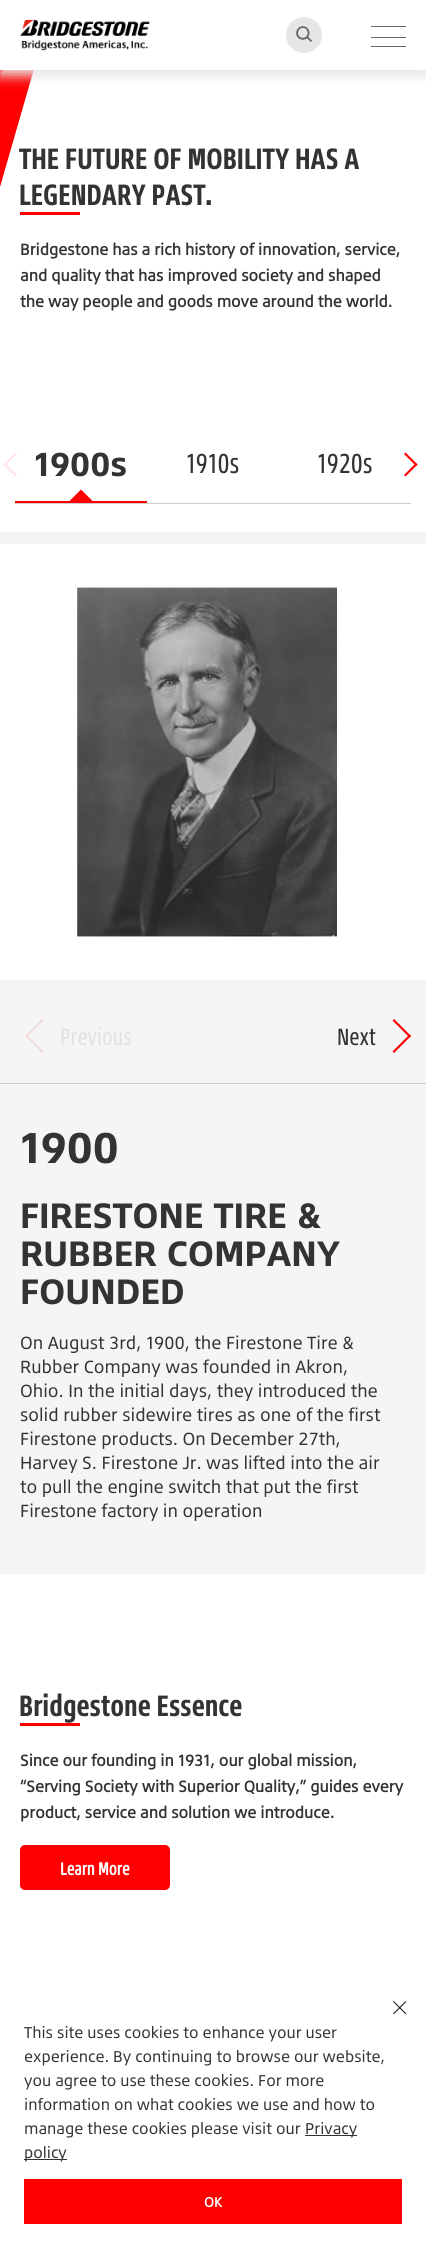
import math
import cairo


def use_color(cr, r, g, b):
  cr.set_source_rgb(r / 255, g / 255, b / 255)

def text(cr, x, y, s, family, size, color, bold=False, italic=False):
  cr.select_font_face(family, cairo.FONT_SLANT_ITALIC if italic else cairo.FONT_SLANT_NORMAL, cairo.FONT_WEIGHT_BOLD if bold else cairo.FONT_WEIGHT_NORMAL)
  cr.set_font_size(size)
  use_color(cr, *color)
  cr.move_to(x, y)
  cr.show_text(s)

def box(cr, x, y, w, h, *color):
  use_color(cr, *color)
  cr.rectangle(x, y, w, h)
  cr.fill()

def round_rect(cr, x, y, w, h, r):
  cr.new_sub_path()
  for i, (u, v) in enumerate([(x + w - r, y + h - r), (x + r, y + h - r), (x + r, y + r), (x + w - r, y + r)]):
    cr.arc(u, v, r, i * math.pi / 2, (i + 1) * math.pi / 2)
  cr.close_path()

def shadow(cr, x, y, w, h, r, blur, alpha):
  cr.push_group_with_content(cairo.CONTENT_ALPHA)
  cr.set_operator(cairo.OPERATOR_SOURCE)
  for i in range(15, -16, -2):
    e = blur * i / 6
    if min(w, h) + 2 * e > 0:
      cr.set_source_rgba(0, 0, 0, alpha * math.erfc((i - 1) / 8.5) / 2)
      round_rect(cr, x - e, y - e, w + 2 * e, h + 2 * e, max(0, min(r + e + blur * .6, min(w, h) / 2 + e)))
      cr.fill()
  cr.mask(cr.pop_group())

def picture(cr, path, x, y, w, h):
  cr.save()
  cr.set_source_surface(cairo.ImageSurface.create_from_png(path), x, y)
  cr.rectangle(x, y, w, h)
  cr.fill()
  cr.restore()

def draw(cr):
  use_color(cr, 255, 255, 255)
  cr.paint()
  box(cr, 20, 212, 60, 3, 255, 0, 0)
  box(cr, 15, 503, 396, 1, 204, 204, 204)
  use_color(cr, 255, 230, 230)
  cr.new_path()
  cr.move_to(17, 475)
  cr.line_to(15.5, 476.5)
  cr.line_to(3.5, 464.5)
  cr.line_to(5, 463)
  cr.close_path()
  cr.fill()
  cr.new_path()
  cr.move_to(17, 454)
  cr.line_to(5, 466)
  cr.line_to(3.5, 464.5)
  cr.line_to(15.5, 452.5)
  cr.close_path()
  cr.fill()
  use_color(cr, 255, 0, 0)
  cr.new_path()
  cr.move_to(404, 454)
  cr.line_to(405.5, 452.5)
  cr.line_to(417.5, 464.5)
  cr.line_to(416, 466)
  cr.close_path()
  cr.fill()
  cr.new_path()
  cr.move_to(404, 475)
  cr.line_to(416, 463)
  cr.line_to(417.5, 464.5)
  cr.line_to(405.5, 476.5)
  cr.close_path()
  cr.fill()
  box(cr, 15, 501, 132, 2, 255, 0, 0)
  cr.save()
  cr.rectangle(15, 433, 132, 70)
  cr.clip()
  cr.new_path()
  cr.move_to(81, 489.5)
  cr.line_to(93.5, 502)
  cr.line_to(81, 514.5)
  cr.line_to(68.5, 502)
  cr.close_path()
  cr.fill()
  cr.restore()
  box(cr, 0, 532, 426, 1042, 245, 245, 245)
  picture(cr, "img_03.png", 0, 544, 426, 436)
  box(cr, 0, 1083, 426, 1, 204, 204, 204)
  use_color(cr, 246, 221, 221)
  cr.new_path()
  cr.move_to(43.5, 1051.5)
  cr.line_to(42, 1053)
  cr.line_to(25, 1036)
  cr.line_to(26.5, 1034.5)
  cr.close_path()
  cr.fill()
  cr.new_path()
  cr.move_to(43.5, 1020.5)
  cr.line_to(26.5, 1037.5)
  cr.line_to(25, 1036)
  cr.line_to(42, 1019)
  cr.close_path()
  cr.fill()
  use_color(cr, 255, 0, 0)
  cr.new_path()
  cr.move_to(392.5, 1020.5)
  cr.line_to(394, 1019)
  cr.line_to(411, 1036)
  cr.line_to(409.5, 1037.5)
  cr.close_path()
  cr.fill()
  cr.new_path()
  cr.move_to(392.5, 1051.5)
  cr.line_to(409.5, 1034.5)
  cr.line_to(411, 1036)
  cr.line_to(394, 1053)
  cr.close_path()
  cr.fill()
  box(cr, 20, 1723, 60, 3, 255, 0, 0)
  round_rect(cr, 20, 1845, 150, 45, 5)
  cr.fill()
  picture(cr, "img_04.png", 393, 2001, 14, 14)
  box(cr, 305, 2135, 52, 1, 51, 51, 51)
  box(cr, 24, 2159, 43, 1, 51, 51, 51)
  box(cr, 24, 2179, 378, 45, 255, 0, 0)
  text(cr, 19, 169, "THE FUTURE OF MOBILITY HAS A", "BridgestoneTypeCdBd", 30, (51, 51, 51), bold=True)
  text(cr, 19, 205, "LEGENDARY PAST.", "BridgestoneTypeCdBd", 30, (51, 51, 51), bold=True)
  use_color(cr, 255, 0, 0)
  cr.new_path()
  cr.move_to(0, 187)
  cr.line_to(0, 55)
  cr.line_to(38, 55)
  cr.close_path()
  cr.fill()
  use_color(cr, 230, 230, 230)
  shadow(cr, 0, 6, 426, 70, 0, 6, 1)
  box(cr, 0, 0, 426, 70, 255, 255, 255)
  use_color(cr, 230, 230, 230)
  cr.arc(304, 35, 18, 0, 2 * math.pi)
  cr.fill()
  picture(cr, "img_02.png", 296, 26, 16, 16)
  box(cr, 371, 46, 35, 1, 102, 102, 102)
  box(cr, 371, 37, 35, 1, 102, 102, 102)
  box(cr, 371, 26, 35, 1, 102, 102, 102)
  picture(cr, "img_01.png", 20, 19, 130, 32)
  text(cr, 20, 255, "Bridgestone has a rich history of innovation, service,", "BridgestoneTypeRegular", 16, (51, 51, 51), bold=True)
  text(cr, 20, 281, "and quality that has improved society and shaped", "BridgestoneTypeRegular", 16, (51, 51, 51), bold=True)
  text(cr, 20, 307, "the way people and goods move around the world.", "BridgestoneTypeRegular", 16, (51, 51, 51), bold=True)
  text(cr, 34, 476, "1900s", "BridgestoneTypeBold", 34, (51, 51, 51), bold=True)
  text(cr, 186, 473, "1910s", "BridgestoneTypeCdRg", 28, (51, 51, 51))
  text(cr, 317, 473, "1920s", "BridgestoneTypeCdRg", 28, (51, 51, 51))
  text(cr, 60, 1045, "Previous", "BridgestoneTypeCdRg", 24, (226, 226, 226))
  text(cr, 337, 1045, "Next", "BridgestoneTypeCdRg", 24, (51, 51, 51))
  text(cr, 20, 1163, "1900", "BridgestoneTypeBold", 44, (51, 51, 51), bold=True)
  text(cr, 20, 1228, "FIRESTONE TIRE &", "BridgestoneTypeBold", 36, (51, 51, 51), bold=True)
  text(cr, 20, 1266, "RUBBER COMPANY", "BridgestoneTypeBold", 36, (51, 51, 51), bold=True)
  text(cr, 20, 1304, "FOUNDED", "BridgestoneTypeBold", 36, (51, 51, 51), bold=True)
  text(cr, 20, 1349, "On August 3rd, 1900, the Firestone Tire &", "BridgestoneTypeRegular", 18, (51, 51, 51))
  text(cr, 20, 1373, "Rubber Company was founded in Akron,", "BridgestoneTypeRegular", 18, (51, 51, 51))
  text(cr, 20, 1397, "Ohio. In the initial days, they introduced the", "BridgestoneTypeRegular", 18, (51, 51, 51))
  text(cr, 20, 1421, "solid rubber sidewire tires as one of the first", "BridgestoneTypeRegular", 18, (51, 51, 51))
  text(cr, 20, 1445, "Firestone products. On December 27th,", "BridgestoneTypeRegular", 18, (51, 51, 51))
  text(cr, 20, 1469, "Harvey S. Firestone Jr. was lifted into the air", "BridgestoneTypeRegular", 18, (51, 51, 51))
  text(cr, 20, 1493, "to pull the engine switch that put the first", "BridgestoneTypeRegular", 18, (51, 51, 51))
  text(cr, 20, 1517, "Firestone factory in operation", "BridgestoneTypeRegular", 18, (51, 51, 51))
  text(cr, 19, 1716, "Bridgestone Essence", "BridgestoneTypeCdBd", 30, (51, 51, 51), bold=True)
  text(cr, 20, 1766, "Since our founding in 1931, our global mission,", "BridgestoneTypeRegular", 16, (51, 51, 51), bold=True)
  text(cr, 20, 1792, "“Serving Society with Superior Quality,” guides every", "BridgestoneTypeRegular", 16, (51, 51, 51), bold=True)
  text(cr, 20, 1818, "product, service and solution we introduce.", "BridgestoneTypeRegular", 16, (51, 51, 51), bold=True)
  text(cr, 60, 1875, "Learn More", "BridgestoneTypeCdRg", 18, (255, 255, 255), bold=True)
  text(cr, 24, 2038, "This site uses cookies to enhance your user", "BridgestoneTypeRegular", 16, (51, 51, 51))
  text(cr, 24, 2062, "experience. By continuing to browse our website,", "BridgestoneTypeRegular", 16, (51, 51, 51))
  text(cr, 24, 2086, "you agree to use these cookies. For more", "BridgestoneTypeRegular", 16, (51, 51, 51))
  text(cr, 24, 2110, "information on what cookies we use and how to", "BridgestoneTypeRegular", 16, (51, 51, 51))
  text(cr, 24, 2134, "manage these cookies please visit our", "BridgestoneTypeRegular", 16, (51, 51, 51))
  text(cr, 305, 2134, "Privacy", "BridgestoneTypeRegular", 16, (51, 51, 51))
  text(cr, 24, 2158, "policy", "BridgestoneTypeRegular", 16, (51, 51, 51))
  text(cr, 204, 2207, "OK", "BridgestoneTypeRegular", 14, (255, 255, 255), bold=True)


surface = cairo.ImageSurface(cairo.FORMAT_RGB24, 426, 2259)
cr = cairo.Context(surface)
options = cairo.FontOptions()
options.set_hint_metrics(cairo.HINT_METRICS_OFF)
options.set_hint_style(cairo.HINT_STYLE_NONE)
cr.set_font_options(options)
cr.set_miter_limit(4)
draw(cr)
surface.write_to_png("out.png")
